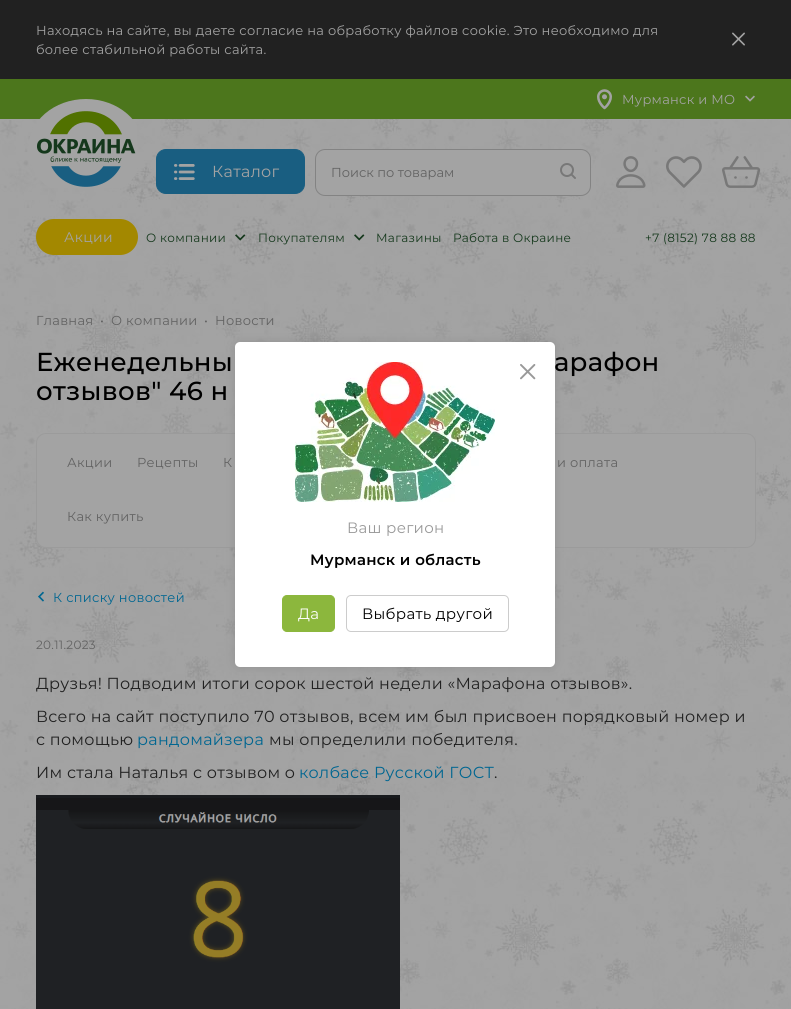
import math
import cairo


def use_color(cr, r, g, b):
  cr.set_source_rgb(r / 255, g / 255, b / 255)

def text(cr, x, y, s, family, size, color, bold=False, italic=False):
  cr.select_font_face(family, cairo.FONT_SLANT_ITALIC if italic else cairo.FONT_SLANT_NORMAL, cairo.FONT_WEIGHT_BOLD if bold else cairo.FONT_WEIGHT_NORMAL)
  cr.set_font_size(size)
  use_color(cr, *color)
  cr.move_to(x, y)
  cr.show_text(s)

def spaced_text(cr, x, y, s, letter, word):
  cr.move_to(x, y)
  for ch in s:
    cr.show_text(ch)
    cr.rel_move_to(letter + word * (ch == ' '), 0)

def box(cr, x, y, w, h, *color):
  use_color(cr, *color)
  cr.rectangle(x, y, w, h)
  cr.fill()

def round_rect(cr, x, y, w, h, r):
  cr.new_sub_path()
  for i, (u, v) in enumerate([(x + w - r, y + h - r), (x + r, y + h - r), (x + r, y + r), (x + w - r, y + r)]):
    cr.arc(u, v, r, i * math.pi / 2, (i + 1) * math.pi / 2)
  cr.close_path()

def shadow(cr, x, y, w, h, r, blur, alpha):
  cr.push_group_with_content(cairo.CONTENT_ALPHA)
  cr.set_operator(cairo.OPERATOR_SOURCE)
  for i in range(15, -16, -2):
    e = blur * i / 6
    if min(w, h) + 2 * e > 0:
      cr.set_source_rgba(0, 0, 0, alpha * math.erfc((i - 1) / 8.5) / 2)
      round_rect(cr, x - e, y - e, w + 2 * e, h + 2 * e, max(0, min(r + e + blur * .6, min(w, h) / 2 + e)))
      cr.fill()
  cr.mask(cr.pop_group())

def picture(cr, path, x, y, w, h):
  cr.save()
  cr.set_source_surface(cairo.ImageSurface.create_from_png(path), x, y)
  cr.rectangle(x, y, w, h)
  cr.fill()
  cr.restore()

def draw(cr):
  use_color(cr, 255, 255, 255)
  cr.paint()
  picture(cr, "img_01.png", 0, 119, 791, 890)
  box(cr, 0, 0, 791, 79, 33, 33, 33)
  picture(cr, "img_02.png", 732, 32, 13, 14)
  box(cr, 0, 79, 791, 40, 76, 118, 28)
  picture(cr, "img_03.png", 597, 89, 15, 21)
  picture(cr, "img_04.png", 745, 95, 10, 7)
  picture(cr, "img_05.png", 29, 99, 108, 89)
  use_color(cr, 25, 94, 129)
  round_rect(cr, 156.5, 149.5, 148, 44, 9.5)
  cr.fill_preserve()
  cr.set_line_width(1)
  cr.stroke()
  picture(cr, "img_06.png", 174, 164, 21, 16)
  use_color(cr, 163, 163, 163)
  round_rect(cr, 315.5, 149.5, 275, 46, 9.5)
  cr.fill_preserve()
  use_color(cr, 131, 131, 131)
  cr.stroke()
  picture(cr, "img_07.png", 560, 163, 16, 16)
  picture(cr, "img_08.png", 616, 156, 30, 32)
  picture(cr, "img_09.png", 666, 156, 36, 32)
  picture(cr, "img_10.png", 722, 156, 39, 32)
  use_color(cr, 163, 136, 0)
  round_rect(cr, 36, 219, 102, 36, 18)
  cr.fill()
  picture(cr, "img_11.png", 235, 234, 11, 7)
  picture(cr, "img_12.png", 354, 234, 11, 7)
  use_color(cr, 163, 163, 163)
  round_rect(cr, 36.5, 433.5, 719, 114, 9.5)
  cr.fill_preserve()
  use_color(cr, 155, 155, 155)
  cr.stroke()
  picture(cr, "img_13.png", 38, 591, 6, 11)
  picture(cr, "img_14.png", 36, 795, 364, 214)
  use_color(cr, 0, 0, 0)
  shadow(cr, 235, 342, 320, 325, 5, 5, 0.1)
  cr.select_font_face("Montserrat")
  cr.set_font_size(13)
  use_color(cr, 163, 163, 163)
  spaced_text(cr, 36, 35, "Находясь на сайте, вы даете согласие на обработку файлов cookie. Это необходимо для", 0.3, 0)
  spaced_text(cr, 36, 54, "более стабильной работы сайта.", 0.3, 0)
  spaced_text(cr, 622, 104, "Мурманск и МО", 0.3, 0)
  cr.set_font_size(16)
  spaced_text(cr, 212, 177, "Каталог", 0.3, 0)
  text(cr, 331, 177, "Поиск по товарам", "Montserrat", 13, (98, 98, 98))
  cr.set_font_size(14)
  use_color(cr, 163, 163, 163)
  spaced_text(cr, 64, 242, "Акции", 0.3, 0)
  cr.set_font_size(12)
  use_color(cr, 21, 56, 28)
  spaced_text(cr, 146, 242, "О компании", 0.3, 0)
  spaced_text(cr, 258, 242, "Покупателям", 0.3, 0)
  spaced_text(cr, 376, 242, "Магазины", 0.3, 0)
  spaced_text(cr, 453, 242, "Работа в Окраине", 0.3, 0)
  spaced_text(cr, 645, 242, "+7 (8152) 78 88 88", 0.3, 0)
  cr.set_font_size(13)
  use_color(cr, 98, 98, 98)
  spaced_text(cr, 36, 325, "Главная", 0.3, 0)
  spaced_text(cr, 100, 325, "•", 0.3, 0)
  spaced_text(cr, 111, 325, "О компании", 0.3, 0)
  spaced_text(cr, 204, 325, "•", 0.3, 0)
  spaced_text(cr, 215, 325, "Новости", 0.3, 0)
  cr.select_font_face("Montserrat Medium")
  cr.set_font_size(26)
  use_color(cr, 0, 0, 0)
  spaced_text(cr, 36, 371, "Еженедельны", 0.3, 0)
  spaced_text(cr, 554, 371, "арафон", 0.3, 0)
  spaced_text(cr, 36, 400, "отзывов\" 46 н", 0.3, 0)
  cr.select_font_face("Montserrat")
  cr.set_font_size(13)
  use_color(cr, 98, 98, 98)
  spaced_text(cr, 67, 467, "Акции", 0.3, 0)
  spaced_text(cr, 137, 467, "Рецепты", 0.3, 0)
  spaced_text(cr, 223, 467, "К", 0.3, 0)
  spaced_text(cr, 557, 467, "и оплата", 0.3, 0)
  spaced_text(cr, 67, 521, "Как купить", 0.3, 0)
  use_color(cr, 0, 102, 145)
  spaced_text(cr, 53, 602, "К списку новостей", 0.3, 0)
  cr.set_font_size(12)
  use_color(cr, 98, 98, 98)
  spaced_text(cr, 36, 649, "20.11.2023", 0.3, 0)
  cr.set_font_size(16)
  use_color(cr, 33, 33, 33)
  spaced_text(cr, 36, 689, "Друзья! Подводим итоги сорок шестой недели «Марафона отзывов».", 0.3, 0)
  spaced_text(cr, 36, 722, "Всего на сайт поступило 70 отзывов, всем им был присвоен порядковый номер и", 0.3, 0)
  spaced_text(cr, 36, 745, "с помощью", 0.3, 0)
  use_color(cr, 0, 102, 145)
  spaced_text(cr, 137, 745, "рандомайзера", 0.3, 0)
  use_color(cr, 33, 33, 33)
  spaced_text(cr, 269, 745, "мы определили победителя.", 0.3, 0)
  spaced_text(cr, 36, 778, "Им стала Наталья с отзывом о", 0.3, 0)
  use_color(cr, 0, 102, 145)
  spaced_text(cr, 299, 778, "колбасе Русской ГОСТ", 0.3, 0)
  use_color(cr, 33, 33, 33)
  spaced_text(cr, 494, 778, ".", 0.3, 0)
  use_color(cr, 255, 255, 255)
  round_rect(cr, 235, 342, 320, 325, 5)
  cr.fill()
  picture(cr, "img_15.png", 520, 364, 16, 16)
  picture(cr, "img_16.png", 295, 362, 200, 140)
  cr.set_font_size(15)
  use_color(cr, 153, 153, 153)
  spaced_text(cr, 347, 533, "Ваш регион", 0.3, 0)
  cr.select_font_face("Montserrat SemiBold")
  use_color(cr, 0, 0, 0)
  spaced_text(cr, 310, 565, "Мурманск и область", 0.3, 0)
  use_color(cr, 140, 183, 61)
  round_rect(cr, 282.5, 595.5, 52, 36, 4.5)
  cr.fill_preserve()
  cr.stroke()
  cr.select_font_face("Montserrat")
  use_color(cr, 255, 255, 255)
  spaced_text(cr, 298, 619, "Да", 0.3, 0)
  round_rect(cr, 346.5, 595.5, 162, 36, 4.5)
  use_color(cr, 204, 204, 204)
  cr.stroke()
  use_color(cr, 0, 0, 0)
  spaced_text(cr, 362, 619, "Выбрать другой", 0.3, 0)


surface = cairo.ImageSurface(cairo.FORMAT_RGB24, 791, 1009)
cr = cairo.Context(surface)
options = cairo.FontOptions()
options.set_hint_metrics(cairo.HINT_METRICS_OFF)
options.set_hint_style(cairo.HINT_STYLE_NONE)
cr.set_font_options(options)
cr.set_miter_limit(4)
draw(cr)
surface.write_to_png("out.png")
